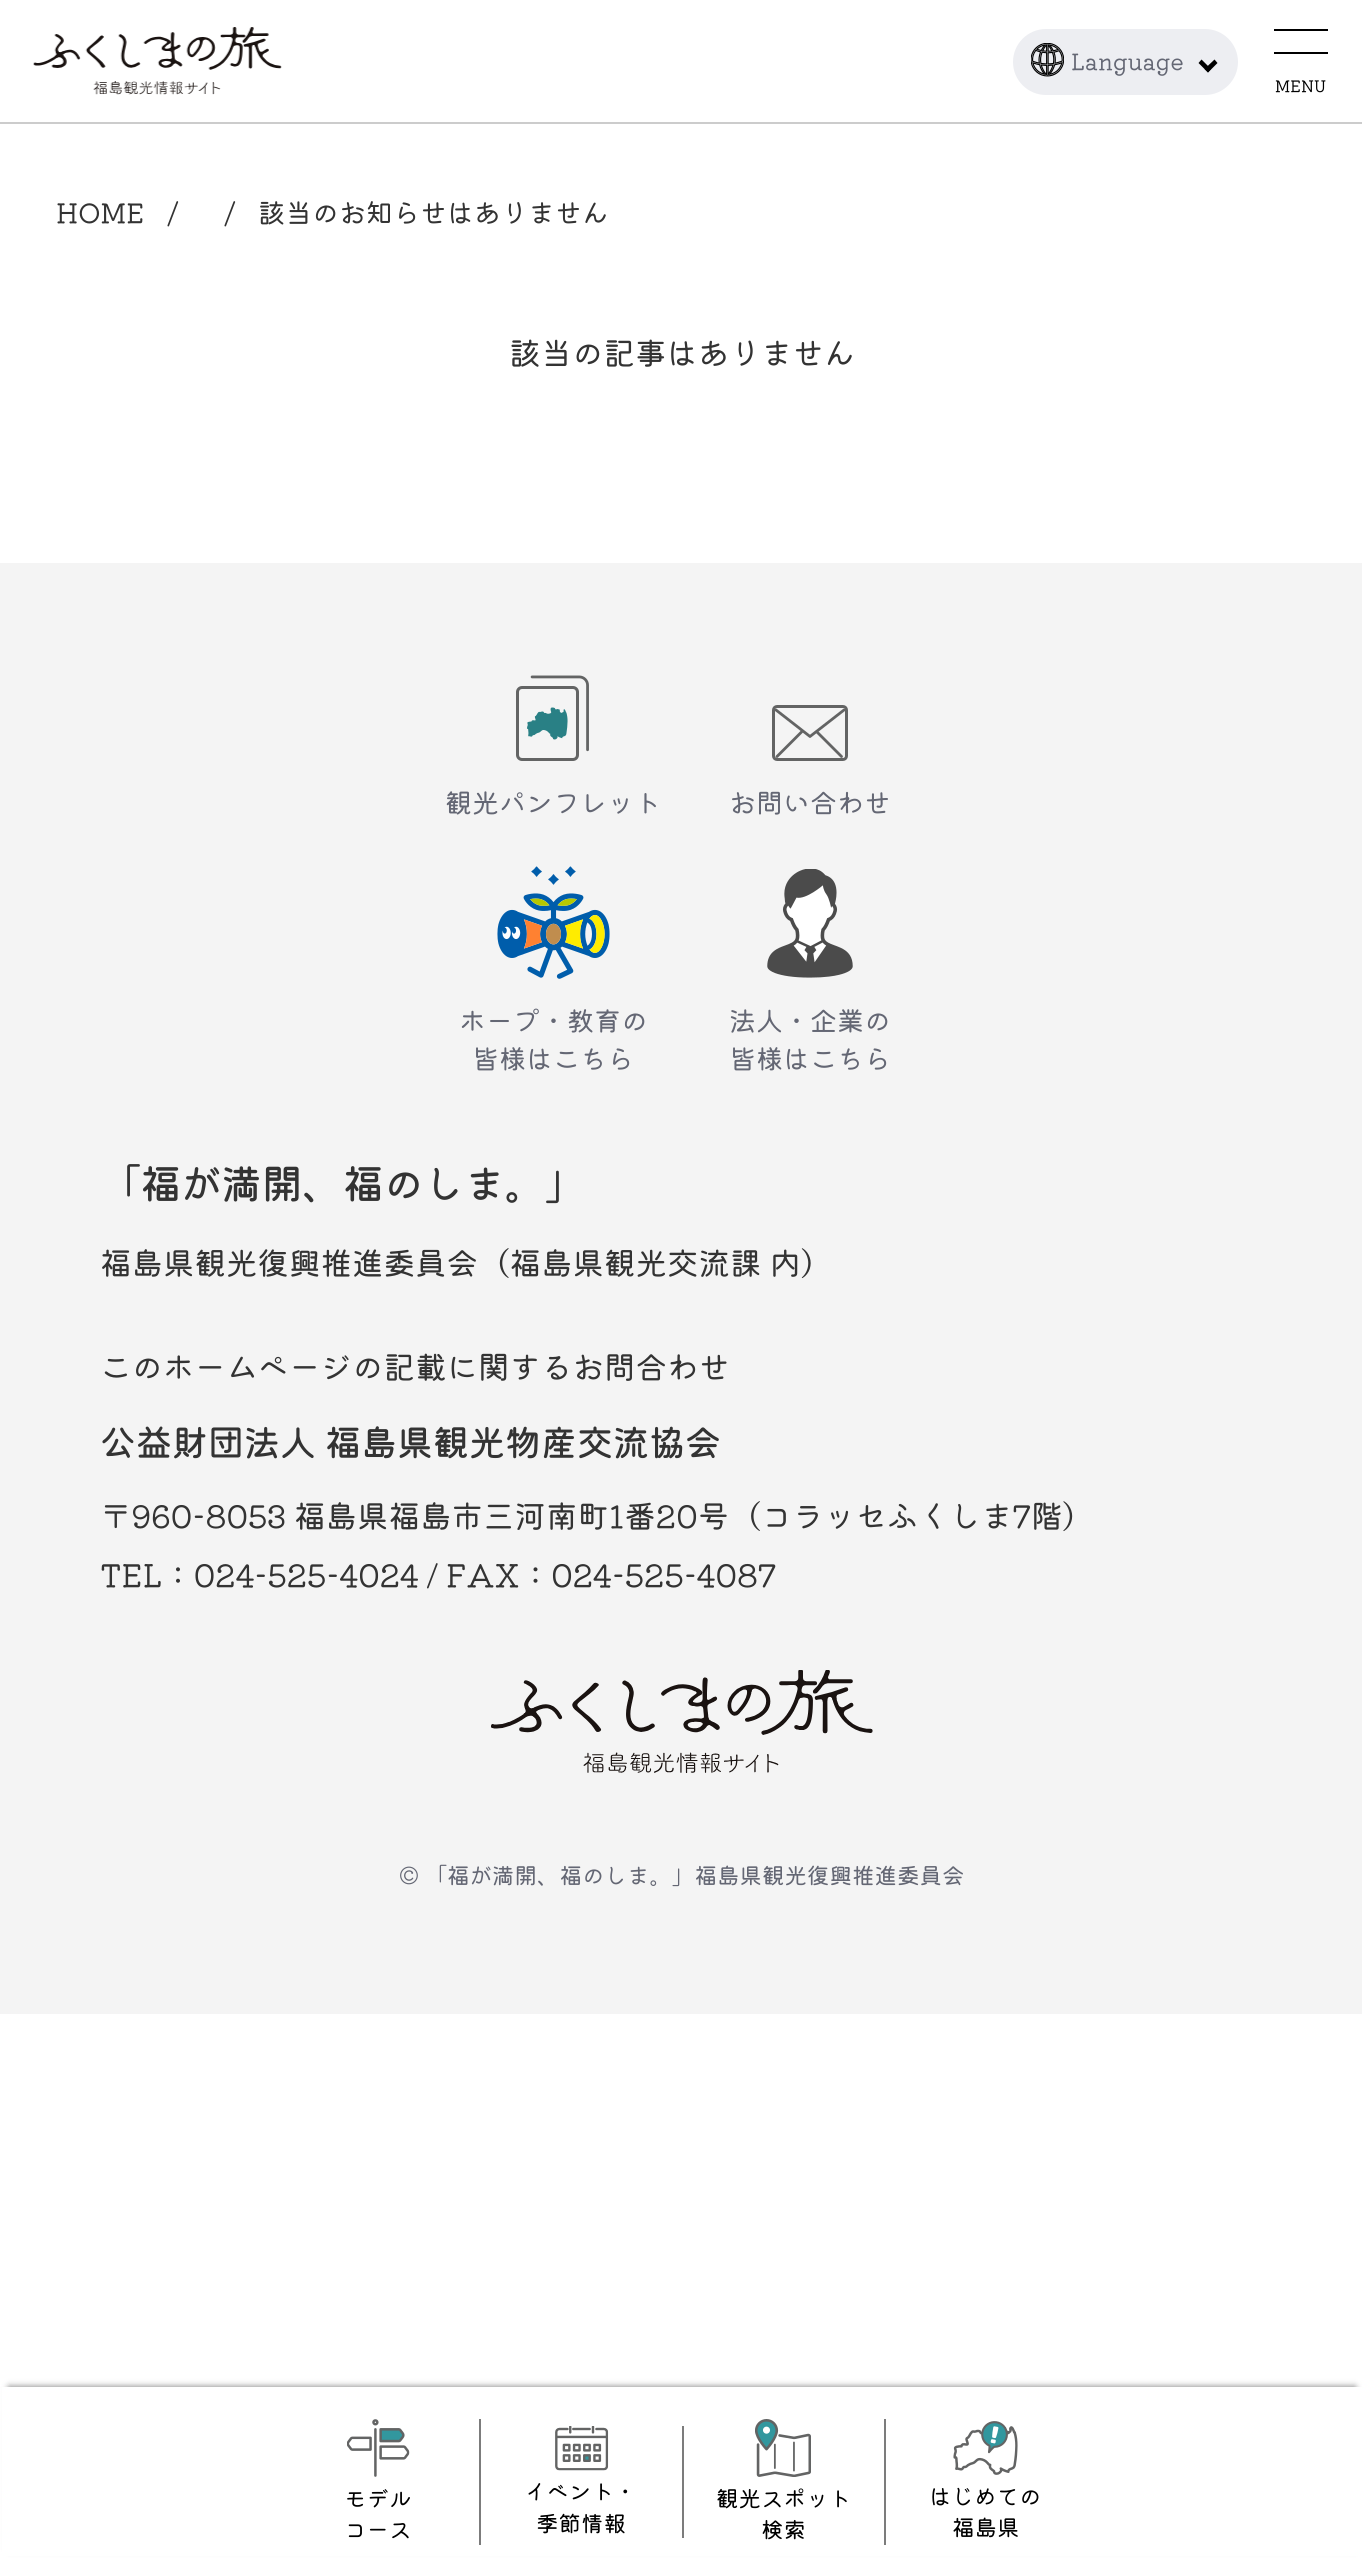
import math
import cairo


def use_color(cr, r, g, b):
  cr.set_source_rgb(r / 255, g / 255, b / 255)

def text(cr, x, y, s, family, size, color, bold=False, italic=False):
  cr.select_font_face(family, cairo.FONT_SLANT_ITALIC if italic else cairo.FONT_SLANT_NORMAL, cairo.FONT_WEIGHT_BOLD if bold else cairo.FONT_WEIGHT_NORMAL)
  cr.set_font_size(size)
  use_color(cr, *color)
  cr.move_to(x, y)
  cr.show_text(s)

def box(cr, x, y, w, h, *color):
  use_color(cr, *color)
  cr.rectangle(x, y, w, h)
  cr.fill()

def round_rect(cr, x, y, w, h, r):
  cr.new_sub_path()
  for i, (u, v) in enumerate([(x + w - r, y + h - r), (x + r, y + h - r), (x + r, y + r), (x + w - r, y + r)]):
    cr.arc(u, v, r, i * math.pi / 2, (i + 1) * math.pi / 2)
  cr.close_path()

def shadow(cr, x, y, w, h, r, blur, alpha):
  cr.push_group_with_content(cairo.CONTENT_ALPHA)
  cr.set_operator(cairo.OPERATOR_SOURCE)
  for i in range(15, -16, -2):
    e = blur * i / 6
    if min(w, h) + 2 * e > 0:
      cr.set_source_rgba(0, 0, 0, alpha * math.erfc((i - 1) / 8.5) / 2)
      round_rect(cr, x - e, y - e, w + 2 * e, h + 2 * e, max(0, min(r + e + blur * .6, min(w, h) / 2 + e)))
      cr.fill()
  cr.mask(cr.pop_group())

def picture(cr, path, x, y, w, h):
  cr.save()
  cr.set_source_surface(cairo.ImageSurface.create_from_png(path), x, y)
  cr.rectangle(x, y, w, h)
  cr.fill()
  cr.restore()

def draw(cr):
  use_color(cr, 255, 255, 255)
  cr.paint()
  box(cr, 0, 122, 1362, 2, 204, 204, 204)
  picture(cr, "img_01.png", 33, 27, 249, 68)
  use_color(cr, 237, 238, 242)
  round_rect(cr, 1013, 29, 225, 66, 33)
  cr.fill()
  picture(cr, "img_02.png", 1031, 43, 33, 34)
  use_color(cr, 0, 0, 0)
  cr.new_path()
  cr.move_to(1217.5, 63)
  cr.line_to(1208, 72.5)
  cr.line_to(1204.5, 69)
  cr.line_to(1214.5, 59.5)
  cr.close_path()
  cr.fill()
  cr.new_path()
  cr.move_to(1211, 69)
  cr.line_to(1208, 72.5)
  cr.line_to(1198.5, 63)
  cr.line_to(1201.5, 59.5)
  cr.close_path()
  cr.fill()
  box(cr, 1274, 29, 54, 2, 0, 0, 0)
  box(cr, 1274, 52, 54, 2, 0, 0, 0)
  use_color(cr, 119, 119, 119)
  shadow(cr, 9, 2387, 1346, 162, 0, 3.5, 1)
  box(cr, 2, 2387, 1360, 169, 255, 255, 255)
  picture(cr, "img_03.png", 347, 2419, 63, 58)
  box(cr, 479, 2419, 2, 126, 124, 124, 124)
  picture(cr, "img_04.png", 555, 2426, 54, 45)
  box(cr, 682, 2426, 2, 112, 124, 124, 124)
  picture(cr, "img_05.png", 755, 2419, 56, 58)
  box(cr, 884, 2419, 2, 126, 124, 124, 124)
  picture(cr, "img_06.png", 953, 2421, 65, 54)
  box(cr, 0, 563, 1362, 1451, 244, 244, 244)
  picture(cr, "img_07.png", 516, 675, 73, 86)
  round_rect(cr, 773.5, 706.5, 73, 53, 3.5)
  use_color(cr, 99, 100, 100)
  cr.set_line_width(3)
  cr.stroke()
  cr.new_path()
  cr.move_to(776, 710)
  cr.line_to(810, 736.5)
  cr.line_to(844, 710)
  cr.move_to(802, 731.5)
  cr.line_to(777, 756.5)
  cr.move_to(816.5, 731.5)
  cr.line_to(841.5, 756.5)
  cr.set_line_width(2.8)
  cr.set_line_cap(cairo.LINE_CAP_ROUND)
  cr.set_line_join(cairo.LINE_JOIN_ROUND)
  cr.stroke()
  picture(cr, "img_08.png", 497, 866, 113, 113)
  picture(cr, "img_09.png", 767, 869, 86, 109)
  picture(cr, "img_10.png", 491, 1670, 382, 103)
  text(cr, 1071, 70, "Language", "Kiwi Maru", 22.5, (100, 103, 116))
  text(cr, 1275, 92, "MENU", "Kiwi Maru", 16, (0, 0, 0))
  text(cr, 344, 2507, "モデル", "Kiwi Maru", 22.5, (0, 0, 0))
  text(cr, 344, 2538, "コース", "Kiwi Maru", 22.5, (0, 0, 0))
  text(cr, 524, 2500, "イベント・", "Kiwi Maru", 22.5, (0, 0, 0))
  text(cr, 536, 2532, "季節情報", "Kiwi Maru", 22.5, (0, 0, 0))
  text(cr, 716, 2507, "観光スポット", "Kiwi Maru", 22.5, (0, 0, 0))
  text(cr, 761, 2538, "検索", "Kiwi Maru", 22.5, (0, 0, 0))
  text(cr, 929, 2505, "はじめての", "Kiwi Maru", 22.5, (0, 0, 0))
  text(cr, 952, 2536, "福島県", "Kiwi Maru", 22.5, (0, 0, 0))
  text(cr, 56, 223, "HOME", "Kiwi Maru", 27, (51, 51, 51))
  text(cr, 167, 225, "/", "Kiwi Maru", 31.5, (51, 51, 51))
  text(cr, 224, 225, "/", "Kiwi Maru", 31.5, (51, 51, 51))
  text(cr, 258, 223, "該当のお知らせはありません", "Kiwi Maru", 27, (51, 51, 51))
  text(cr, 509, 365, "該当の記事はありません", "Kiwi Maru", 31.5, (51, 51, 51))
  text(cr, 445, 813, "観光パンフレット", "Kiwi Maru", 27, (100, 103, 116))
  text(cr, 729, 813, "お問い合わせ", "Kiwi Maru", 27, (100, 103, 116))
  text(cr, 459, 1031, "ホープ・教育の", "Kiwi Maru", 27, (100, 103, 116))
  text(cr, 472, 1069, "皆様はこちら", "Kiwi Maru", 27, (100, 103, 116))
  text(cr, 729, 1031, "法人・企業の", "Kiwi Maru", 27, (100, 103, 116))
  text(cr, 729, 1069, "皆様はこちら", "Kiwi Maru", 27, (100, 103, 116))
  text(cr, 100, 1199, "「福が満開、福のしま。」", "Kiwi Maru Medium", 40.5, (51, 51, 51))
  text(cr, 100, 1275, "福島県観光復興推進委員会（福島県観光交流課 内）", "Kiwi Maru", 31.5, (51, 51, 51))
  text(cr, 100, 1379, "このホームページの記載に関するお問合わせ", "Kiwi Maru", 31.5, (51, 51, 51))
  text(cr, 100, 1456, "公益財団法人 福島県観光物産交流協会", "Kiwi Maru Medium", 36, (51, 51, 51))
  text(cr, 100, 1528, "〒960-8053 福島県福島市三河南町1番20号（コラッセふくしま7階）", "Kiwi Maru", 31.5, (51, 51, 51))
  text(cr, 100, 1587, "TEL：024-525-4024 / FAX：024-525-4087", "Kiwi Maru", 31.5, (51, 51, 51))
  text(cr, 399, 1884, "© 「福が満開、福のしま。」福島県観光復興推進委員会", "Kiwi Maru", 22.5, (100, 103, 116))


surface = cairo.ImageSurface(cairo.FORMAT_RGB24, 1362, 2566)
cr = cairo.Context(surface)
options = cairo.FontOptions()
options.set_hint_metrics(cairo.HINT_METRICS_OFF)
options.set_hint_style(cairo.HINT_STYLE_NONE)
cr.set_font_options(options)
cr.set_miter_limit(4)
draw(cr)
surface.write_to_png("out.png")
